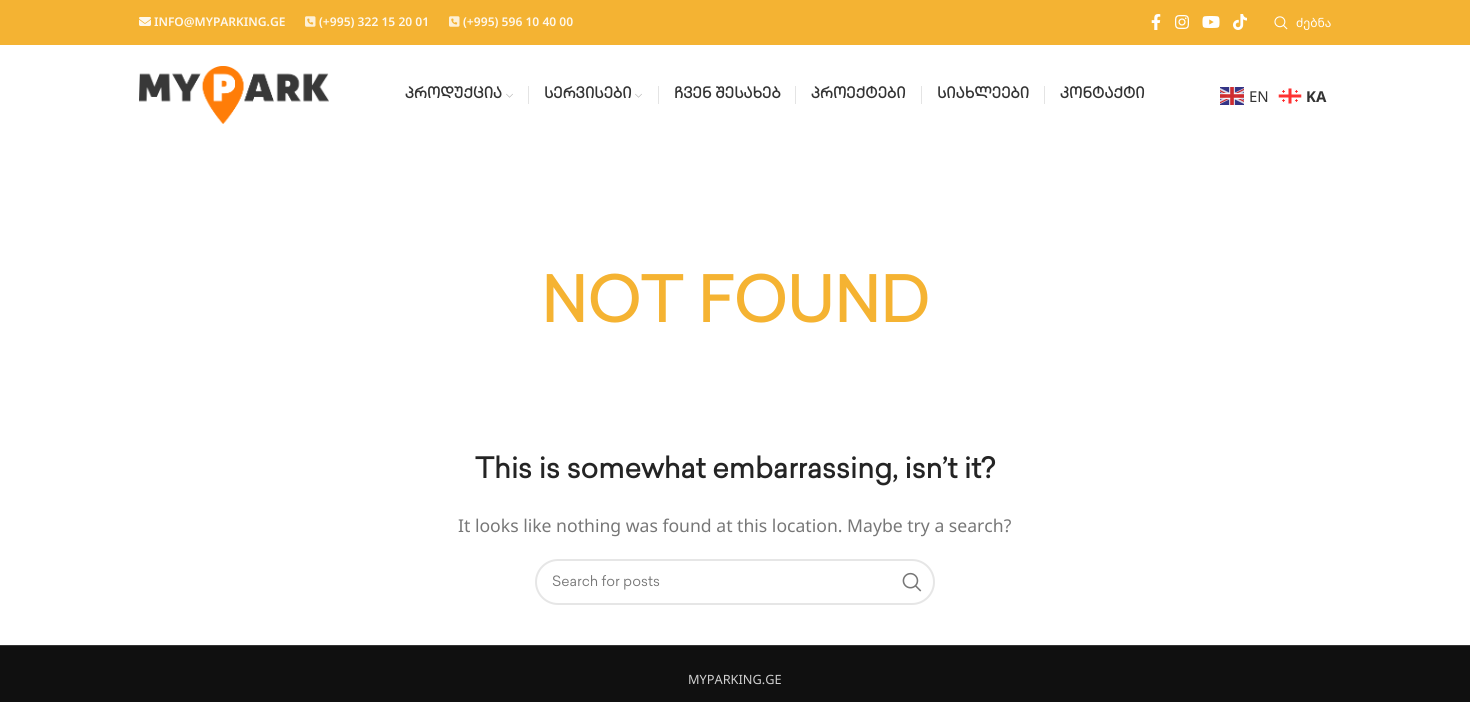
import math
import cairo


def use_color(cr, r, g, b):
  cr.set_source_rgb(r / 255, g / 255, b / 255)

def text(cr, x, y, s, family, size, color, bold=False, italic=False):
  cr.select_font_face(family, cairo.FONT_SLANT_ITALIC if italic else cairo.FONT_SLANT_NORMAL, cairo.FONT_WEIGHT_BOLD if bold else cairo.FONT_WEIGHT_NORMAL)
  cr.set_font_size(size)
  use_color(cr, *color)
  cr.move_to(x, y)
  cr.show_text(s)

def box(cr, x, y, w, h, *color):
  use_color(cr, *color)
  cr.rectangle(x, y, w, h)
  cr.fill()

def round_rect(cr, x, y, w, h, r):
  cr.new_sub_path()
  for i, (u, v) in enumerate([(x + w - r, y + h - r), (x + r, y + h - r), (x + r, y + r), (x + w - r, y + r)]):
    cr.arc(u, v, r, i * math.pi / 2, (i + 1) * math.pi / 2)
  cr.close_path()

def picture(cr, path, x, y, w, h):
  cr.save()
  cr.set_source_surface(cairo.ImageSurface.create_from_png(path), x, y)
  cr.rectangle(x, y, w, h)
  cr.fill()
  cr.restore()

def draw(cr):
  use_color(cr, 255, 255, 255)
  cr.paint()
  box(cr, 0, 0, 1470, 45, 244, 179, 51)
  picture(cr, "img_01.png", 139, 17, 12, 9)
  picture(cr, "img_02.png", 305, 16, 11, 11)
  picture(cr, "img_02.png", 449, 16, 11, 11)
  picture(cr, "img_03.png", 1151, 14, 10, 16)
  picture(cr, "img_04.png", 1175, 15, 14, 14)
  picture(cr, "img_05.png", 1202, 16, 18, 12)
  picture(cr, "img_06.png", 1233, 14, 14, 16)
  picture(cr, "img_07.png", 1274, 16, 14, 14)
  picture(cr, "img_08.png", 139, 66, 190, 58)
  picture(cr, "img_09.png", 506, 93, 7, 5)
  box(cr, 528, 86, 1, 18, 228, 228, 228)
  picture(cr, "img_09.png", 635, 93, 7, 5)
  box(cr, 658, 86, 1, 18, 228, 228, 228)
  box(cr, 795, 86, 1, 18, 228, 228, 228)
  box(cr, 921, 86, 1, 18, 228, 228, 228)
  box(cr, 1044, 86, 1, 18, 228, 228, 228)
  picture(cr, "img_10.png", 1220, 87, 24, 18)
  picture(cr, "img_11.png", 1278, 88, 24, 16)
  round_rect(cr, 536, 560, 398, 44, 22)
  use_color(cr, 230, 230, 230)
  cr.stroke()
  picture(cr, "img_12.png", 902, 572, 20, 20)
  box(cr, 0, 646, 1470, 56, 16, 16, 16)
  box(cr, 0, 645, 1470, 1, 52, 52, 52)
  text(cr, 154, 26, "INFO@MYPARKING.GE", "Noto Sans Georgian SemiBold", 12, (254, 247, 235))
  text(cr, 319, 26, "(+995) 322 15 20 01", "Noto Sans Georgian SemiBold", 12, (254, 247, 235))
  text(cr, 463, 26, "(+995) 596 10 40 00", "Noto Sans Georgian SemiBold", 12, (254, 247, 235))
  text(cr, 1296, 27, "ძებნა", "Noto Sans Georgian", 12, (255, 255, 255))
  text(cr, 405, 98, "პროდუქცია", "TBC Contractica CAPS", 15, (51, 51, 51), bold=True)
  text(cr, 544, 98, "სერვისები", "TBC Contractica CAPS", 15, (51, 51, 51), bold=True)
  text(cr, 674, 98, "ჩვენ შესახებ", "TBC Contractica CAPS", 15, (51, 51, 51), bold=True)
  text(cr, 811, 98, "პროექტები", "TBC Contractica CAPS", 15, (51, 51, 51), bold=True)
  text(cr, 937, 98, "სიახლეები", "TBC Contractica CAPS", 15, (51, 51, 51), bold=True)
  text(cr, 1060, 98, "კონტაქტი", "TBC Contractica CAPS", 15, (51, 51, 51), bold=True)
  text(cr, 1249, 102, "EN", "Noto Sans Georgian", 15, (51, 51, 51))
  text(cr, 1306, 102, "KA", "Noto Sans Georgian", 15, (51, 51, 51), bold=True)
  text(cr, 541, 322, "NOT FOUND", "TBC Contractica CAPS", 61.75, (245, 179, 50), bold=True)
  text(cr, 475, 478, "This is somewhat embarrassing, isn’t it?", "TBC Contractica CAPS", 28, (36, 36, 36), bold=True)
  text(cr, 458, 532, "It looks like nothing was found at this location. Maybe try a search?", "Noto Sans Georgian", 17.6, (119, 119, 119))
  text(cr, 552, 586, "Search for posts", "TBC Contractica CAPS", 14, (119, 119, 119))
  text(cr, 688, 684, "MYPARKING.GE", "Noto Sans Georgian", 12.75, (207, 207, 207))


surface = cairo.ImageSurface(cairo.FORMAT_RGB24, 1470, 702)
cr = cairo.Context(surface)
options = cairo.FontOptions()
options.set_hint_metrics(cairo.HINT_METRICS_OFF)
options.set_hint_style(cairo.HINT_STYLE_NONE)
cr.set_font_options(options)
cr.set_miter_limit(4)
draw(cr)
surface.write_to_png("out.png")
